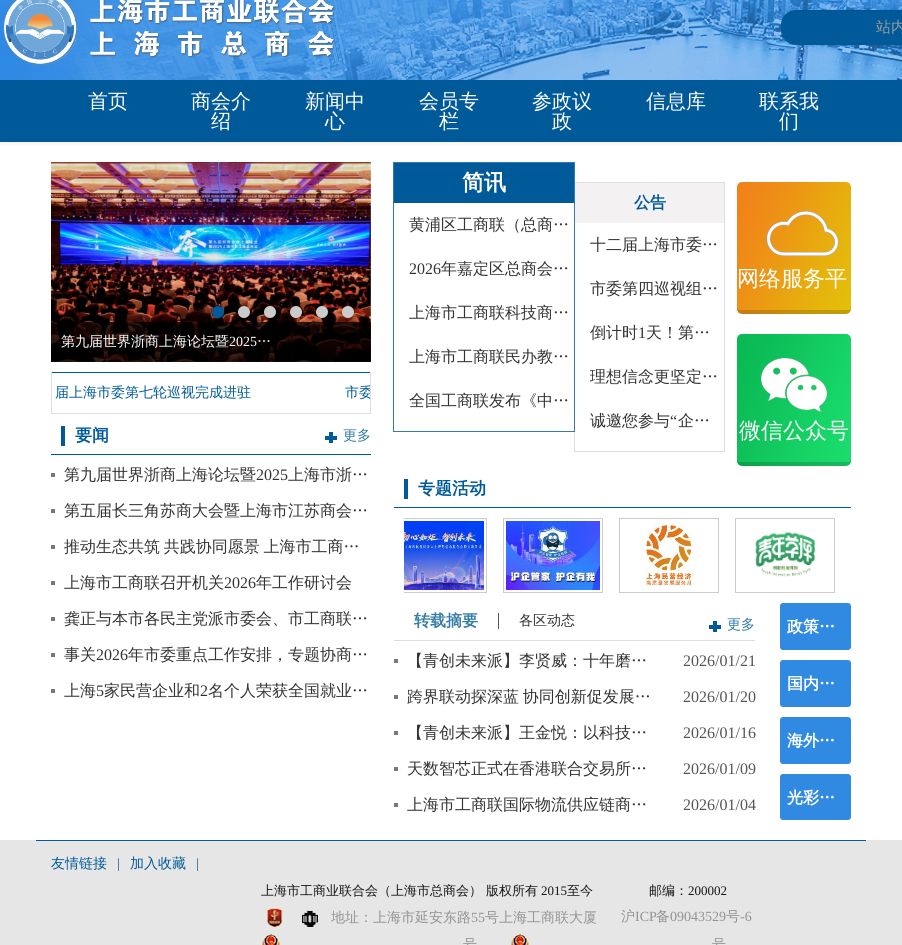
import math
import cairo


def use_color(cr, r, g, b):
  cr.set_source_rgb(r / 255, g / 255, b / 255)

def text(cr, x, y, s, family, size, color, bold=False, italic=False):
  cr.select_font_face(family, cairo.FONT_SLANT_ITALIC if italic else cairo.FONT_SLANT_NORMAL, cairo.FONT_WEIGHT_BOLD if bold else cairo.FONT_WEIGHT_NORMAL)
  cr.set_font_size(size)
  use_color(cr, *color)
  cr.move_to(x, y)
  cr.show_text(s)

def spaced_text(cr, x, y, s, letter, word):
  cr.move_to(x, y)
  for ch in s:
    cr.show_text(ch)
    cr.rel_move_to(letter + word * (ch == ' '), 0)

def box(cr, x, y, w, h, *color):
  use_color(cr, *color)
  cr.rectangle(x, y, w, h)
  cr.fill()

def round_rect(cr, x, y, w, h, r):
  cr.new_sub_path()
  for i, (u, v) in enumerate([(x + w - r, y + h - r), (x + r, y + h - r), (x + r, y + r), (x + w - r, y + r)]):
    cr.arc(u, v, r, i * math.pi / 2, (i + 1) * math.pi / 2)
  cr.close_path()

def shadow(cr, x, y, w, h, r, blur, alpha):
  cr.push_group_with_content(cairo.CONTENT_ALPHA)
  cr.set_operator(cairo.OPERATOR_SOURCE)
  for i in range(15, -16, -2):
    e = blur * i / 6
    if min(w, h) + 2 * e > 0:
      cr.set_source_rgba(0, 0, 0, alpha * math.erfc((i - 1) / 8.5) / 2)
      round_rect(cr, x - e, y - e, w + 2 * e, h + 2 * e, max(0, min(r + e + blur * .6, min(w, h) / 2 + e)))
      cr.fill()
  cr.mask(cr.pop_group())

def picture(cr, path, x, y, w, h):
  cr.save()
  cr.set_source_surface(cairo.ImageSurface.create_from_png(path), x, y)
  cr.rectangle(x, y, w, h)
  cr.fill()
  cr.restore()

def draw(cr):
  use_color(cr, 255, 255, 255)
  cr.paint()
  use_color(cr, 0, 0, 0)
  shadow(cr, 0, 81, 902, 62, 0, 2, 0.07)
  picture(cr, "img_01.png", 0, 0, 902, 80)
  picture(cr, "img_02.png", 3, 0, 332, 66)
  use_color(cr, 0, 90, 153)
  round_rect(cr, 781, 10, 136, 35, 15)
  cr.fill()
  cr.set_source_rgba(0, 0, 0, 0.07)
  cr.new_path()
  cr.move_to(796, 11)
  cr.line_to(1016, 11)
  cr.curve_to(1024, 11, 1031, 18, 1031, 26)
  cr.line_to(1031, 25)
  cr.curve_to(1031, 17, 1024, 10, 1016, 10)
  cr.line_to(796, 10)
  cr.curve_to(788, 10, 781, 17, 781, 25)
  cr.line_to(781, 26)
  cr.curve_to(781, 18, 788, 11, 796, 11)
  cr.close_path()
  cr.fill()
  box(cr, 0, 80, 902, 62, 0, 90, 153)
  picture(cr, "img_03.png", 51, 162, 320, 200)
  cr.arc(218, 312, 6, 0, 2 * math.pi)
  cr.fill()
  use_color(cr, 203, 203, 203)
  cr.arc(244, 312, 6, 0, 2 * math.pi)
  cr.fill()
  cr.arc(270, 312, 6, 0, 2 * math.pi)
  cr.fill()
  cr.arc(296, 312, 6, 0, 2 * math.pi)
  cr.fill()
  cr.arc(322, 312, 6, 0, 2 * math.pi)
  cr.fill()
  cr.arc(348, 312, 6, 0, 2 * math.pi)
  cr.fill()
  cr.set_source_rgba(0, 0, 0, 0.75)
  cr.rectangle(51, 322, 320, 40)
  cr.fill()
  box(cr, 51, 372, 320, 1, 0, 90, 153)
  box(cr, 370, 372, 1, 42, 221, 221, 221)
  box(cr, 51, 413, 320, 1, 221, 221, 221)
  box(cr, 51, 372, 1, 42, 221, 221, 221)
  box(cr, 51, 454, 320, 1, 0, 90, 153)
  box(cr, 61, 426, 4, 20, 0, 90, 153)
  picture(cr, "img_04.png", 325, 432, 12, 11)
  box(cr, 51, 473, 4, 4, 121, 121, 121)
  box(cr, 51, 509, 4, 4, 121, 121, 121)
  box(cr, 51, 545, 4, 4, 121, 121, 121)
  box(cr, 51, 581, 4, 4, 121, 121, 121)
  box(cr, 51, 617, 4, 4, 121, 121, 121)
  box(cr, 51, 653, 4, 4, 121, 121, 121)
  box(cr, 51, 689, 4, 4, 121, 121, 121)
  cr.rectangle(574.5, 182.5, 150, 269)
  use_color(cr, 221, 221, 221)
  cr.set_line_width(1)
  cr.stroke()
  cr.rectangle(393.5, 162.5, 181, 269)
  use_color(cr, 51, 122, 183)
  cr.stroke()
  box(cr, 394, 163, 180, 40, 0, 90, 153)
  box(cr, 575, 183, 149, 40, 243, 241, 241)
  picture(cr, "img_05.png", 737, 182, 114, 132)
  picture(cr, "img_06.png", 766, 211, 73, 45)
  picture(cr, "img_07.png", 737, 334, 114, 132)
  picture(cr, "img_08.png", 761, 358, 66, 54)
  box(cr, 394, 507, 457, 1, 0, 90, 153)
  box(cr, 404, 479, 4, 20, 0, 90, 153)
  cr.save()
  cr.rectangle(404, 518, 83, 75)
  cr.clip()
  cr.rectangle(387.5, 518.5, 99, 74)
  use_color(cr, 204, 204, 204)
  cr.stroke()
  cr.restore()
  picture(cr, "img_09.png", 404, 521, 80, 69)
  cr.rectangle(503.5, 518.5, 99, 74)
  use_color(cr, 204, 204, 204)
  cr.stroke()
  picture(cr, "img_10.png", 506, 521, 94, 69)
  cr.rectangle(619.5, 518.5, 99, 74)
  cr.stroke()
  picture(cr, "img_11.png", 646, 521, 49, 65)
  cr.rectangle(735.5, 518.5, 99, 74)
  cr.stroke()
  picture(cr, "img_12.png", 755, 531, 61, 46)
  box(cr, 394, 640, 361, 1, 221, 221, 221)
  box(cr, 498, 613, 1, 16, 85, 85, 85)
  picture(cr, "img_04.png", 709, 621, 12, 11)
  box(cr, 394, 659, 4, 4, 121, 121, 121)
  box(cr, 394, 695, 4, 4, 121, 121, 121)
  box(cr, 394, 731, 4, 4, 121, 121, 121)
  box(cr, 394, 767, 4, 4, 121, 121, 121)
  box(cr, 394, 803, 4, 4, 121, 121, 121)
  use_color(cr, 48, 138, 226)
  round_rect(cr, 780, 603, 71, 47, 3)
  cr.fill()
  round_rect(cr, 780, 660, 71, 47, 3)
  cr.fill()
  round_rect(cr, 780, 717, 71, 47, 3)
  cr.fill()
  round_rect(cr, 780, 774, 71, 46, 3)
  cr.fill()
  box(cr, 0, 840, 902, 105, 230, 230, 230)
  box(cr, 36, 840, 830, 1, 0, 90, 153)
  picture(cr, "img_13.png", 266, 908, 17, 20)
  picture(cr, "img_14.png", 302, 910, 16, 17)
  picture(cr, "img_15.png", 262, 934, 18, 11)
  picture(cr, "img_15.png", 511, 934, 18, 11)
  text(cr, 876, 32, "站内", "WenQuanYi Zen Hei Medium", 15, (153, 153, 153))
  text(cr, 88, 108, "首页", "WenQuanYi Zen Hei Medium", 20, (255, 255, 255))
  text(cr, 191, 108, "商会介", "WenQuanYi Zen Hei Medium", 20, (255, 255, 255))
  text(cr, 211, 128, "绍", "WenQuanYi Zen Hei Medium", 20, (255, 255, 255))
  text(cr, 305, 108, "新闻中", "WenQuanYi Zen Hei Medium", 20, (255, 255, 255))
  text(cr, 325, 128, "心", "WenQuanYi Zen Hei Medium", 20, (255, 255, 255))
  text(cr, 419, 108, "会员专", "WenQuanYi Zen Hei Medium", 20, (255, 255, 255))
  text(cr, 439, 128, "栏", "WenQuanYi Zen Hei Medium", 20, (255, 255, 255))
  text(cr, 532, 108, "参政议", "WenQuanYi Zen Hei Medium", 20, (255, 255, 255))
  text(cr, 552, 128, "政", "WenQuanYi Zen Hei Medium", 20, (255, 255, 255))
  text(cr, 646, 108, "信息库", "WenQuanYi Zen Hei Medium", 20, (255, 255, 255))
  text(cr, 759, 108, "联系我", "WenQuanYi Zen Hei Medium", 20, (255, 255, 255))
  text(cr, 779, 128, "们", "WenQuanYi Zen Hei Medium", 20, (255, 255, 255))
  text(cr, 61, 346, "第九届世界浙商上海论坛暨", "WenQuanYi Zen Hei Medium", 14, (255, 255, 255))
  text(cr, 229, 346, "2025", "Liberation Serif", 14, (255, 255, 255))
  text(cr, 257, 346, "…", "WenQuanYi Zen Hei Medium", 14, (255, 255, 255))
  text(cr, 55, 397, "届上海市委第七轮巡视完成进驻", "WenQuanYi Zen Hei Medium", 14, (0, 90, 153))
  cr.save()
  cr.rectangle(52, 381, 318, 24)
  cr.clip()
  text(cr, 345, 397, "市委", "WenQuanYi Zen Hei Medium", 14, (0, 90, 153))
  cr.restore()
  text(cr, 75, 441, "要闻", "WenQuanYi Zen Hei", 17, (0, 90, 153), bold=True)
  text(cr, 343, 440, "更多", "WenQuanYi Zen Hei Medium", 14, (49, 123, 166))
  text(cr, 64, 480, "第九届世界浙商上海论坛暨", "WenQuanYi Zen Hei Medium", 16, (51, 51, 51))
  text(cr, 256, 480, "2025", "Liberation Serif", 16, (51, 51, 51))
  text(cr, 288, 480, "上海市浙…", "WenQuanYi Zen Hei Medium", 16, (51, 51, 51))
  text(cr, 64, 516, "第五届长三角苏商大会暨上海市江苏商会…", "WenQuanYi Zen Hei Medium", 16, (51, 51, 51))
  spaced_text(cr, 64, 552, "推动生态共筑 共践协同愿景 上海市工商…", 0, -1)
  text(cr, 64, 588, "上海市工商联召开机关", "WenQuanYi Zen Hei Medium", 16, (51, 51, 51))
  text(cr, 224, 588, "2026", "Liberation Serif", 16, (51, 51, 51))
  text(cr, 256, 588, "年工作研讨会", "WenQuanYi Zen Hei Medium", 16, (51, 51, 51))
  text(cr, 64, 624, "龚正与本市各民主党派市委会、市工商联…", "WenQuanYi Zen Hei Medium", 16, (51, 51, 51))
  text(cr, 64, 660, "事关", "WenQuanYi Zen Hei Medium", 16, (51, 51, 51))
  text(cr, 96, 660, "2026", "Liberation Serif", 16, (51, 51, 51))
  text(cr, 128, 660, "年市委重点工作安排，专题协商…", "WenQuanYi Zen Hei Medium", 16, (51, 51, 51))
  text(cr, 64, 696, "上海", "WenQuanYi Zen Hei Medium", 16, (51, 51, 51))
  text(cr, 96, 696, "5", "Liberation Serif", 16, (51, 51, 51))
  text(cr, 104, 696, "家民营企业和", "WenQuanYi Zen Hei Medium", 16, (51, 51, 51))
  text(cr, 200, 696, "2", "Liberation Serif", 16, (51, 51, 51))
  text(cr, 208, 696, "名个人荣获全国就业…", "WenQuanYi Zen Hei Medium", 16, (51, 51, 51))
  text(cr, 462, 190, "简讯", "WenQuanYi Zen Hei", 22, (255, 255, 255), bold=True)
  text(cr, 409, 230, "黄浦区工商联（总商…", "WenQuanYi Zen Hei Medium", 16, (51, 51, 51))
  text(cr, 409, 274, "2026", "Liberation Serif", 16, (51, 51, 51))
  text(cr, 441, 274, "年嘉定区总商会…", "WenQuanYi Zen Hei Medium", 16, (51, 51, 51))
  text(cr, 409, 318, "上海市工商联科技商…", "WenQuanYi Zen Hei Medium", 16, (51, 51, 51))
  text(cr, 409, 362, "上海市工商联民办教…", "WenQuanYi Zen Hei Medium", 16, (51, 51, 51))
  text(cr, 409, 406, "全国工商联发布《中…", "WenQuanYi Zen Hei Medium", 16, (51, 51, 51))
  text(cr, 634, 208, "公告", "WenQuanYi Zen Hei", 16, (0, 90, 153), bold=True)
  text(cr, 590, 250, "十二届上海市委…", "WenQuanYi Zen Hei Medium", 16, (51, 51, 51))
  text(cr, 590, 294, "市委第四巡视组…", "WenQuanYi Zen Hei Medium", 16, (51, 51, 51))
  text(cr, 590, 338, "倒计时", "WenQuanYi Zen Hei Medium", 16, (51, 51, 51))
  text(cr, 638, 338, "1", "Liberation Serif", 16, (51, 51, 51))
  text(cr, 646, 338, "天！第…", "WenQuanYi Zen Hei Medium", 16, (51, 51, 51))
  text(cr, 590, 382, "理想信念更坚定…", "WenQuanYi Zen Hei Medium", 16, (51, 51, 51))
  text(cr, 590, 426, "诚邀您参与", "WenQuanYi Zen Hei Medium", 16, (51, 51, 51))
  text(cr, 670, 426, "“", "Liberation Serif", 16, (51, 51, 51))
  text(cr, 678, 426, "企…", "WenQuanYi Zen Hei Medium", 16, (51, 51, 51))
  text(cr, 737, 286, "网络服务平", "WenQuanYi Zen Hei Medium", 22, (255, 255, 255))
  text(cr, 739, 438, "微信公众号", "WenQuanYi Zen Hei Medium", 22, (255, 255, 255))
  text(cr, 418, 494, "专题活动", "WenQuanYi Zen Hei", 17, (0, 90, 153), bold=True)
  text(cr, 414, 626, "转载摘要", "WenQuanYi Zen Hei", 16, (49, 123, 166), bold=True)
  text(cr, 519, 625, "各区动态", "WenQuanYi Zen Hei Medium", 14, (51, 51, 51))
  text(cr, 727, 629, "更多", "WenQuanYi Zen Hei Medium", 14, (49, 123, 166))
  text(cr, 407, 666, "【青创未来派】李贤威：十年磨…", "WenQuanYi Zen Hei Medium", 16, (51, 51, 51))
  text(cr, 683, 666, "2026/01/21", "Liberation Serif", 16, (85, 85, 85))
  cr.select_font_face("WenQuanYi Zen Hei Medium")
  use_color(cr, 51, 51, 51)
  spaced_text(cr, 407, 702, "跨界联动探深蓝 协同创新促发展…", 0, -1)
  text(cr, 683, 702, "2026/01/20", "Liberation Serif", 16, (85, 85, 85))
  text(cr, 407, 738, "【青创未来派】王金悦：以科技…", "WenQuanYi Zen Hei Medium", 16, (51, 51, 51))
  text(cr, 683, 738, "2026/01/16", "Liberation Serif", 16, (85, 85, 85))
  text(cr, 407, 774, "天数智芯正式在香港联合交易所…", "WenQuanYi Zen Hei Medium", 16, (51, 51, 51))
  text(cr, 683, 774, "2026/01/09", "Liberation Serif", 16, (85, 85, 85))
  text(cr, 407, 810, "上海市工商联国际物流供应链商…", "WenQuanYi Zen Hei Medium", 16, (51, 51, 51))
  text(cr, 683, 810, "2026/01/04", "Liberation Serif", 16, (85, 85, 85))
  text(cr, 787, 632, "政策…", "WenQuanYi Zen Hei", 16, (255, 255, 255), bold=True)
  text(cr, 787, 689, "国内…", "WenQuanYi Zen Hei", 16, (255, 255, 255), bold=True)
  text(cr, 787, 746, "海外…", "WenQuanYi Zen Hei", 16, (255, 255, 255), bold=True)
  text(cr, 787, 803, "光彩…", "WenQuanYi Zen Hei", 16, (255, 255, 255), bold=True)
  text(cr, 51, 868, "友情链接", "WenQuanYi Zen Hei Medium", 14, (0, 90, 153))
  text(cr, 117, 868, "|", "Liberation Serif", 14, (0, 90, 153))
  text(cr, 130, 868, "加入收藏", "WenQuanYi Zen Hei Medium", 14, (0, 90, 153))
  text(cr, 196, 868, "|", "Liberation Serif", 14, (0, 90, 153))
  text(cr, 261, 895, "上海市工商业联合会（上海市总商会） 版权所有", "WenQuanYi Zen Hei Medium", 13, (21, 21, 21))
  text(cr, 541, 895, "2015", "Liberation Serif", 13, (21, 21, 21))
  text(cr, 567, 895, "至今", "WenQuanYi Zen Hei Medium", 13, (21, 21, 21))
  text(cr, 649, 895, "邮编：", "WenQuanYi Zen Hei Medium", 13, (21, 21, 21))
  text(cr, 688, 895, "200002", "Liberation Serif", 13, (21, 21, 21))
  text(cr, 331, 922, "地址：上海市延安东路", "WenQuanYi Zen Hei Medium", 14, (147, 147, 147))
  text(cr, 471, 922, "55", "Liberation Serif", 14, (147, 147, 147))
  text(cr, 485, 922, "号上海工商联大厦", "WenQuanYi Zen Hei Medium", 14, (147, 147, 147))
  text(cr, 621, 921, "沪", "WenQuanYi Zen Hei Medium", 14, (147, 147, 147))
  text(cr, 635, 921, "ICP", "Liberation Serif", 14, (147, 147, 147))
  text(cr, 656, 921, "备", "WenQuanYi Zen Hei Medium", 14, (147, 147, 147))
  text(cr, 670, 921, "09043529", "Liberation Serif", 14, (147, 147, 147))
  text(cr, 726, 921, "号", "WenQuanYi Zen Hei Medium", 14, (147, 147, 147))
  text(cr, 740, 921, "-6", "Liberation Serif", 14, (147, 147, 147))
  text(cr, 463, 949, "号", "WenQuanYi Zen Hei Medium", 14, (147, 147, 147))
  text(cr, 712, 949, "号", "WenQuanYi Zen Hei Medium", 14, (147, 147, 147))


surface = cairo.ImageSurface(cairo.FORMAT_RGB24, 902, 945)
cr = cairo.Context(surface)
options = cairo.FontOptions()
options.set_hint_metrics(cairo.HINT_METRICS_OFF)
options.set_hint_style(cairo.HINT_STYLE_NONE)
cr.set_font_options(options)
cr.set_miter_limit(4)
draw(cr)
surface.write_to_png("out.png")
